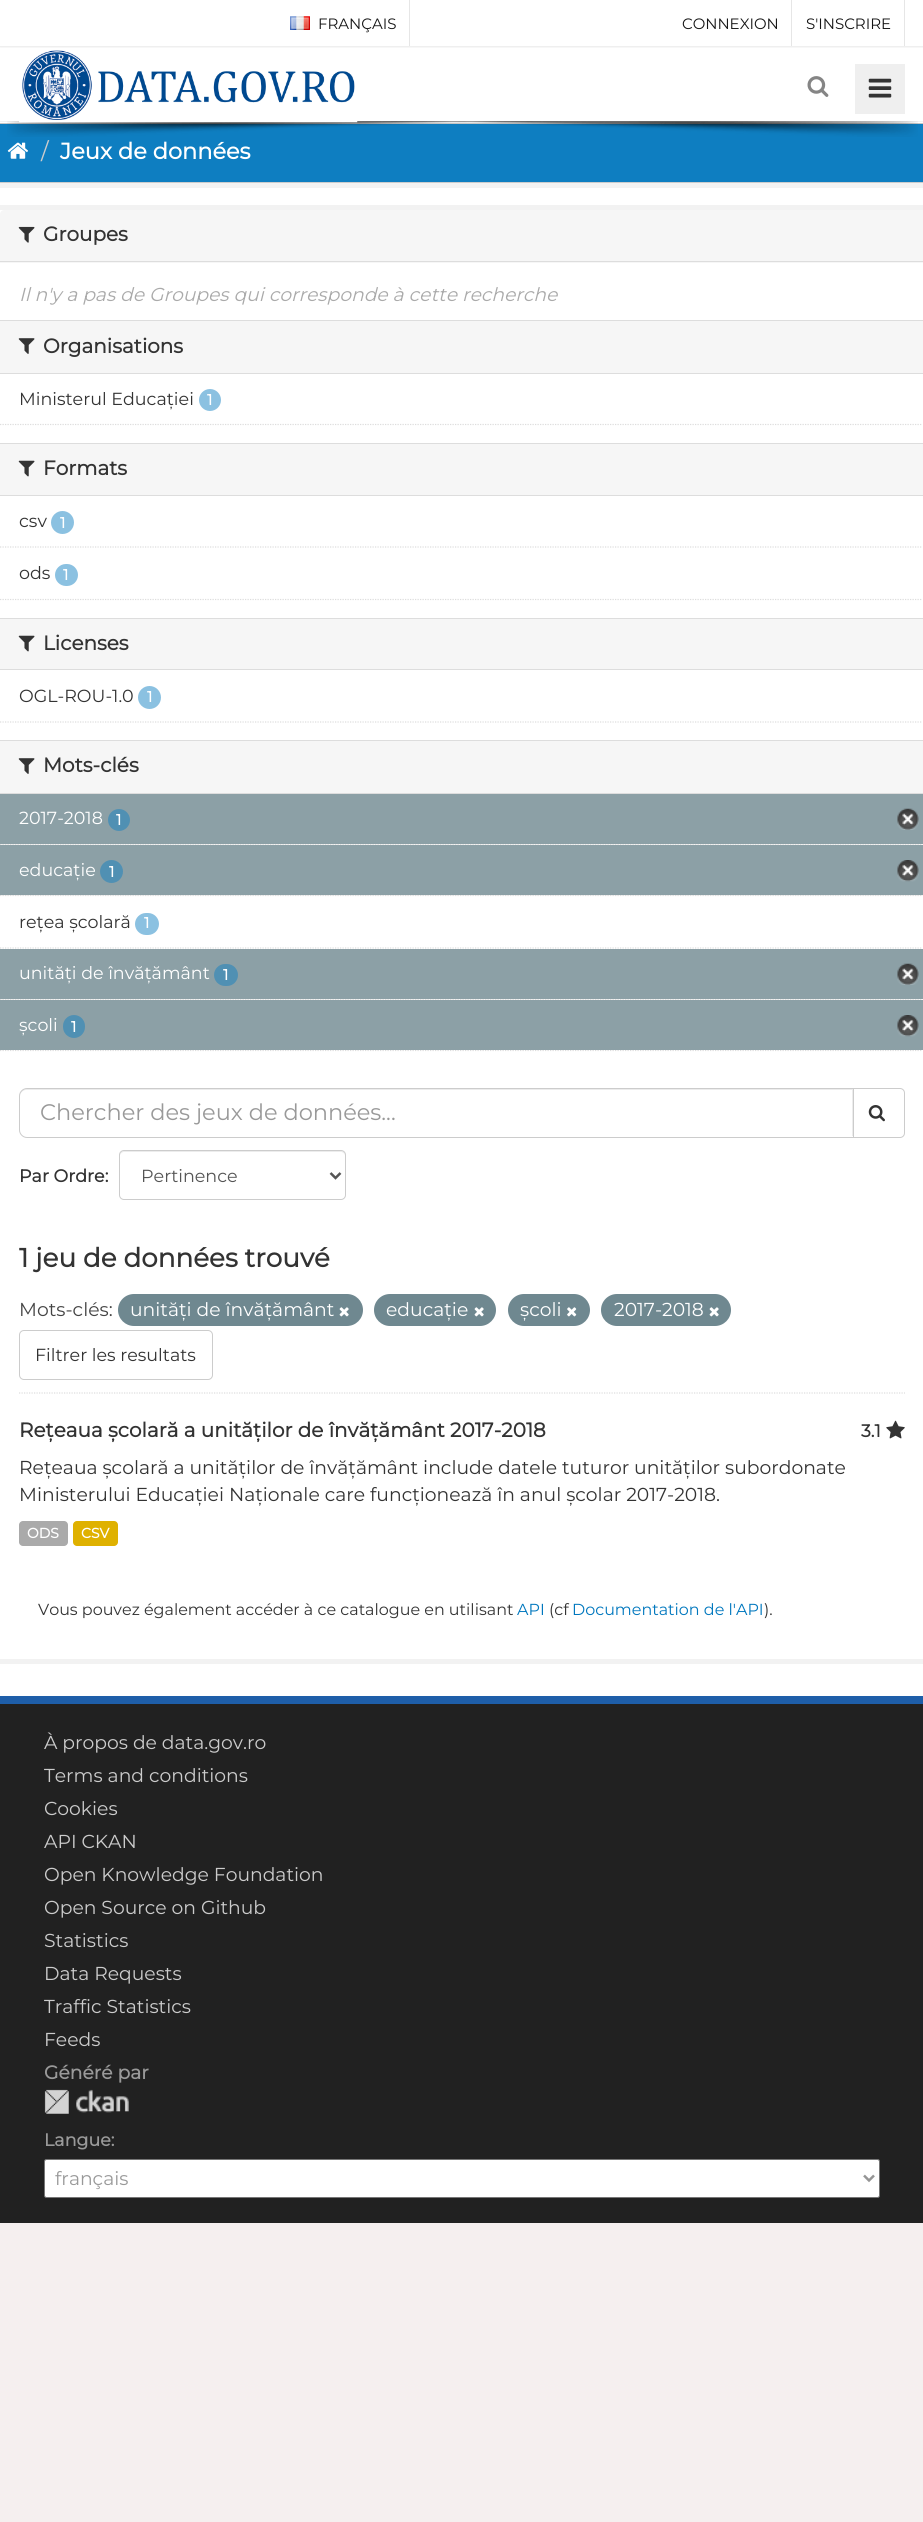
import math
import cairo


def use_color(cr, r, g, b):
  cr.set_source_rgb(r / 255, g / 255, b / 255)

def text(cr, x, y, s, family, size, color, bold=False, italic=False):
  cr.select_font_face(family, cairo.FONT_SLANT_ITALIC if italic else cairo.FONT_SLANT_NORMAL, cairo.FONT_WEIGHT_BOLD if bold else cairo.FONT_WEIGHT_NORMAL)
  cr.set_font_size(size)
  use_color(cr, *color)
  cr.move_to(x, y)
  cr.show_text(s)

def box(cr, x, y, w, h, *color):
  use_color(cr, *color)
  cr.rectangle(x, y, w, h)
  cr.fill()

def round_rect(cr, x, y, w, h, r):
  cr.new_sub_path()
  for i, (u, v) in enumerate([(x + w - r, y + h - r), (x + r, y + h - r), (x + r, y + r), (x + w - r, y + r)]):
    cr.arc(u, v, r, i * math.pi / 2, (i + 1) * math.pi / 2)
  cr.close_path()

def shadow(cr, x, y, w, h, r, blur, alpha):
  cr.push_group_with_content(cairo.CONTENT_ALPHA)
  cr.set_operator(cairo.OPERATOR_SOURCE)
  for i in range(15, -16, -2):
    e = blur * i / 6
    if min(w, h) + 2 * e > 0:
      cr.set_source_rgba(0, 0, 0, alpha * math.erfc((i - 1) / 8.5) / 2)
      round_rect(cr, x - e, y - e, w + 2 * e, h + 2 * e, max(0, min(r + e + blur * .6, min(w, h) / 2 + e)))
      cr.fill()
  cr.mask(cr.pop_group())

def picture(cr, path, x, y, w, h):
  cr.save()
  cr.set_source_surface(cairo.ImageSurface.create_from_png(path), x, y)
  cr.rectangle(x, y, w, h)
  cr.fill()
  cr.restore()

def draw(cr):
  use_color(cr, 245, 239, 239)
  cr.paint()
  box(cr, 0, 0, 923, 48, 255, 255, 255)
  box(cr, 0, 46, 923, 1, 242, 242, 242)
  box(cr, 409, 0, 1, 46, 230, 230, 230)
  picture(cr, "img_01.png", 290, 16, 20, 14)
  box(cr, 791, 0, 1, 46, 230, 230, 230)
  box(cr, 904, 0, 1, 46, 230, 230, 230)
  box(cr, 0, 183, 923, 1513, 255, 255, 255)
  cr.rectangle(-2.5, 120.5, 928, 65)
  cr.set_source_rgba(0, 0, 0, 0.05)
  cr.set_line_width(5)
  cr.stroke()
  use_color(cr, 14, 126, 193)
  cr.rectangle(-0.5, 123.5, 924, 59)
  cr.fill_preserve()
  use_color(cr, 204, 204, 204)
  cr.set_line_width(1)
  cr.stroke()
  use_color(cr, 0, 0, 0)
  shadow(cr, 0, 48, 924, 75, 0, 1, 0.1)
  box(cr, 0, 48, 923, 75, 255, 255, 255)
  box(cr, 0, 121, 923, 1, 242, 242, 242)
  picture(cr, "img_05.png", 7, 121, 911, 16)
  picture(cr, "img_02.png", 19, 50, 339, 73)
  picture(cr, "img_03.png", 807, 76, 22, 21)
  box(cr, 855, 64, 50, 50, 239, 239, 239)
  picture(cr, "img_04.png", 868, 78, 24, 20)
  picture(cr, "img_06.png", 7, 142, 21, 17)
  cr.rectangle(-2.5, 207.5, 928, 1454)
  use_color(cr, 242, 242, 242)
  cr.set_line_width(5)
  cr.stroke()
  use_color(cr, 246, 246, 246)
  cr.new_path()
  cr.move_to(4, 210)
  cr.line_to(923, 210)
  cr.line_to(923, 263)
  cr.line_to(0, 263)
  cr.line_to(0, 214)
  cr.curve_to(0, 212, 2, 210, 4, 210)
  cr.close_path()
  cr.fill()
  box(cr, 0, 261, 923, 1, 221, 221, 221)
  picture(cr, "img_07.png", 18, 226, 17, 17)
  box(cr, 0, 321, 923, 52, 246, 246, 246)
  box(cr, 0, 320, 923, 1, 221, 221, 221)
  box(cr, 0, 373, 923, 1, 221, 221, 221)
  picture(cr, "img_08.png", 18, 338, 17, 16)
  use_color(cr, 139, 193, 225)
  cr.arc(210, 400, 11, 0, 2 * math.pi)
  cr.fill()
  cr.new_path()
  cr.move_to(0, 424.5)
  cr.line_to(922.5, 424.5)
  use_color(cr, 221, 221, 221)
  cr.set_line_width(1.2)
  cr.set_dash([1.25, 1.25])
  cr.stroke()
  box(cr, 0, 444, 923, 51, 246, 246, 246)
  box(cr, 0, 443, 923, 1, 221, 221, 221)
  box(cr, 0, 495, 923, 1, 221, 221, 221)
  picture(cr, "img_09.png", 18, 460, 17, 17)
  cr.new_path()
  cr.move_to(0, 547)
  cr.line_to(922.5, 547)
  cr.stroke()
  use_color(cr, 139, 193, 225)
  cr.arc(62.5, 522.5, 11.5, 0, 2 * math.pi)
  cr.fill()
  round_rect(cr, 55, 564, 23, 22, 11)
  cr.fill()
  cr.new_path()
  cr.move_to(0, 599.5)
  cr.line_to(922.5, 599.5)
  use_color(cr, 221, 221, 221)
  cr.stroke()
  box(cr, 0, 619, 923, 50, 246, 246, 246)
  box(cr, 0, 618, 923, 1, 221, 221, 221)
  box(cr, 0, 669, 923, 1, 221, 221, 221)
  picture(cr, "img_09.png", 18, 635, 17, 17)
  use_color(cr, 139, 193, 225)
  cr.arc(149.5, 697.5, 11.5, 0, 2 * math.pi)
  cr.fill()
  cr.new_path()
  cr.move_to(0, 722)
  cr.line_to(922.5, 722)
  use_color(cr, 221, 221, 221)
  cr.stroke()
  box(cr, 0, 741, 923, 52, 246, 246, 246)
  box(cr, 0, 740, 923, 1, 221, 221, 221)
  box(cr, 0, 793, 923, 1, 221, 221, 221)
  picture(cr, "img_08.png", 18, 758, 17, 16)
  box(cr, 1, 844, 922, 1, 246, 246, 246)
  cr.new_path()
  cr.move_to(0, 844.5)
  cr.line_to(922.5, 844.5)
  use_color(cr, 221, 221, 221)
  cr.stroke()
  box(cr, 0, 794, 923, 50, 140, 160, 166)
  use_color(cr, 80, 144, 179)
  cr.arc(119, 820, 11, 0, 2 * math.pi)
  cr.fill()
  picture(cr, "img_10.png", 897, 808, 22, 22)
  box(cr, 1, 895, 922, 1, 246, 246, 246)
  cr.new_path()
  cr.move_to(0, 895.5)
  cr.line_to(922.5, 895.5)
  use_color(cr, 221, 221, 221)
  cr.stroke()
  box(cr, 0, 845, 923, 50, 140, 160, 166)
  use_color(cr, 80, 144, 179)
  cr.arc(111.5, 871.5, 11.5, 0, 2 * math.pi)
  cr.fill()
  picture(cr, "img_11.png", 897, 860, 22, 22)
  cr.new_path()
  cr.move_to(0, 948)
  cr.line_to(922.5, 948)
  use_color(cr, 221, 221, 221)
  cr.stroke()
  use_color(cr, 139, 193, 225)
  round_rect(cr, 135, 913, 24, 22, 11)
  cr.fill()
  box(cr, 1, 999, 922, 1, 246, 246, 246)
  cr.new_path()
  cr.move_to(0, 999.5)
  cr.line_to(922.5, 999.5)
  use_color(cr, 221, 221, 221)
  cr.stroke()
  box(cr, 0, 949, 923, 50, 140, 160, 166)
  use_color(cr, 80, 144, 179)
  round_rect(cr, 214, 964, 24, 22, 11)
  cr.fill()
  picture(cr, "img_10.png", 897, 963, 22, 22)
  cr.new_path()
  cr.move_to(0, 1050.5)
  cr.line_to(922.5, 1050.5)
  use_color(cr, 221, 221, 221)
  cr.stroke()
  box(cr, 0, 1000, 923, 50, 140, 160, 166)
  use_color(cr, 80, 144, 179)
  round_rect(cr, 63, 1015, 22, 23, 11)
  cr.fill()
  picture(cr, "img_11.png", 897, 1015, 22, 22)
  cr.new_path()
  cr.move_to(19, 1393)
  cr.line_to(905, 1393)
  use_color(cr, 221, 221, 221)
  cr.stroke()
  use_color(cr, 236, 236, 236)
  cr.new_path()
  cr.move_to(26, 1090)
  cr.line_to(852, 1090)
  cr.line_to(852, 1136)
  cr.line_to(853, 1136)
  cr.line_to(853, 1089)
  cr.line_to(26, 1089)
  cr.curve_to(22, 1089, 20, 1092, 20, 1096)
  cr.curve_to(20, 1093, 23, 1090, 26, 1090)
  cr.close_path()
  cr.fill()
  cr.new_path()
  cr.move_to(27, 1088.5)
  cr.line_to(853.5, 1088.5)
  cr.line_to(853.5, 1137.5)
  cr.line_to(27, 1137.5)
  cr.curve_to(23, 1137.5, 19.5, 1134, 19.5, 1130)
  cr.line_to(19.5, 1096)
  cr.curve_to(19.5, 1092, 23, 1088.5, 27, 1088.5)
  cr.close_path()
  use_color(cr, 204, 204, 204)
  cr.set_line_width(1)
  cr.set_dash([])
  cr.stroke()
  use_color(cr, 255, 255, 255)
  cr.new_path()
  cr.move_to(853.5, 1088.5)
  cr.line_to(900, 1088.5)
  cr.curve_to(902.5, 1088.5, 904.5, 1090.5, 904.5, 1093)
  cr.line_to(904.5, 1133)
  cr.curve_to(904.5, 1135.5, 902.5, 1137.5, 900, 1137.5)
  cr.line_to(853.5, 1137.5)
  cr.close_path()
  cr.fill_preserve()
  use_color(cr, 204, 204, 204)
  cr.stroke()
  picture(cr, "img_12.png", 868, 1105, 17, 17)
  use_color(cr, 236, 236, 236)
  cr.new_path()
  cr.move_to(124, 1152)
  cr.line_to(341, 1152)
  cr.curve_to(343, 1152, 345, 1154, 345, 1156)
  cr.curve_to(345, 1153, 344, 1151, 341, 1151)
  cr.line_to(124, 1151)
  cr.curve_to(121, 1151, 120, 1153, 120, 1156)
  cr.curve_to(120, 1154, 122, 1152, 124, 1152)
  cr.close_path()
  cr.fill()
  round_rect(cr, 119.5, 1150.5, 226, 49, 4.5)
  use_color(cr, 204, 204, 204)
  cr.stroke()
  cr.new_path()
  cr.move_to(330.5, 1173)
  cr.line_to(335.5, 1178)
  cr.line_to(340.5, 1173)
  use_color(cr, 85, 85, 85)
  cr.set_line_width(2.5)
  cr.stroke()
  use_color(cr, 111, 136, 144)
  round_rect(cr, 118, 1294, 245, 32, 16)
  cr.fill()
  picture(cr, "img_13.png", 339, 1307, 10, 10)
  round_rect(cr, 374, 1294, 122, 32, 16)
  cr.fill()
  picture(cr, "img_13.png", 474, 1307, 10, 10)
  round_rect(cr, 508, 1294, 82, 32, 16)
  cr.fill()
  picture(cr, "img_14.png", 567, 1307, 10, 10)
  round_rect(cr, 601, 1294, 130, 32, 16)
  cr.fill()
  picture(cr, "img_13.png", 709, 1307, 10, 10)
  round_rect(cr, 19.5, 1330.5, 193, 49, 4.5)
  use_color(cr, 204, 204, 204)
  cr.set_line_width(1)
  cr.stroke()
  picture(cr, "img_15.png", 886, 1420, 19, 19)
  use_color(cr, 170, 170, 170)
  round_rect(cr, 19, 1521, 49, 25, 4)
  cr.fill()
  use_color(cr, 223, 177, 0)
  round_rect(cr, 73, 1521, 45, 25, 4)
  cr.fill()
  box(cr, 0, 1704, 923, 519, 33, 33, 33)
  box(cr, 0, 1696, 923, 8, 30, 94, 169)
  picture(cr, "img_16.png", 44, 2089, 85, 25)
  use_color(cr, 255, 255, 255)
  round_rect(cr, 44.5, 2159.5, 835, 38, 2)
  cr.fill_preserve()
  use_color(cr, 118, 118, 118)
  cr.stroke()
  cr.new_path()
  cr.move_to(864, 2175.5)
  cr.line_to(869, 2180.5)
  cr.line_to(874, 2175.5)
  use_color(cr, 149, 149, 149)
  cr.set_line_width(2.5)
  cr.stroke()
  text(cr, 318, 29, "FRANÇAIS", "Montserrat Thin", 15, (21, 21, 21))
  text(cr, 682, 29, "CONNEXION", "Montserrat Thin", 15, (21, 21, 21))
  text(cr, 806, 29, "S'INSCRIRE", "Montserrat Thin", 15, (21, 21, 21))
  text(cr, 41, 159, "/", "Montserrat Thin", 22.5, (204, 204, 204))
  text(cr, 60, 159, "Jeux de données", "Montserrat", 22.5, (255, 255, 255), bold=True)
  text(cr, 43, 241, "Groupes", "Montserrat", 20, (51, 51, 51), bold=True)
  text(cr, 19, 301, "Il n'y a pas de Groupes qui corresponde à cette recherche", "Montserrat Thin", 18.75, (170, 170, 170), italic=True)
  text(cr, 43, 353, "Organisations", "Montserrat", 20, (51, 51, 51), bold=True)
  text(cr, 19, 405, "Ministerul Educației", "Montserrat Thin", 17.5, (51, 51, 51))
  text(cr, 207, 405, "1", "Montserrat", 15, (255, 255, 255), bold=True)
  text(cr, 43, 475, "Formats", "Montserrat", 20, (51, 51, 51), bold=True)
  text(cr, 19, 527, "csv", "Montserrat Thin", 17.5, (51, 51, 51))
  text(cr, 60, 528, "1", "Montserrat", 15, (255, 255, 255), bold=True)
  text(cr, 19, 579, "ods", "Montserrat Thin", 17.5, (51, 51, 51))
  text(cr, 63, 580, "1", "Montserrat", 15, (255, 255, 255), bold=True)
  text(cr, 43, 650, "Licenses", "Montserrat", 20, (51, 51, 51), bold=True)
  text(cr, 19, 702, "OGL-ROU-1.0", "Montserrat Thin", 17.5, (51, 51, 51))
  text(cr, 147, 702, "1", "Montserrat", 15, (255, 255, 255), bold=True)
  text(cr, 43, 772, "Mots-clés", "Montserrat", 20, (51, 51, 51), bold=True)
  text(cr, 19, 824, "2017-2018", "Montserrat Thin", 17.5, (255, 255, 255))
  text(cr, 116, 825, "1", "Montserrat", 15, (255, 255, 255), bold=True)
  text(cr, 19, 876, "educație", "Montserrat Thin", 17.5, (255, 255, 255))
  text(cr, 109, 877, "1", "Montserrat", 15, (255, 255, 255), bold=True)
  text(cr, 19, 928, "rețea școlară", "Montserrat Thin", 17.5, (51, 51, 51))
  text(cr, 144, 928, "1", "Montserrat", 15, (255, 255, 255), bold=True)
  text(cr, 19, 979, "unități de învățământ", "Montserrat Thin", 17.5, (255, 255, 255))
  text(cr, 223, 980, "1", "Montserrat", 15, (255, 255, 255), bold=True)
  text(cr, 19, 1031, "școli", "Montserrat Thin", 17.5, (255, 255, 255))
  text(cr, 71, 1032, "1", "Montserrat", 15, (255, 255, 255), bold=True)
  text(cr, 40, 1120, "Chercher des jeux de données...", "Montserrat Thin", 22.5, (153, 153, 153))
  text(cr, 19, 1182, "Par Ordre:", "Montserrat", 17.5, (51, 51, 51), bold=True)
  text(cr, 141, 1182, "Pertinence", "Montserrat Thin", 17.5, (85, 85, 85))
  text(cr, 19, 1267, "1 jeu de données trouvé", "Montserrat", 26.25, (51, 51, 51), bold=True)
  text(cr, 19, 1316, "Mots-clés:", "Montserrat Thin", 18.75, (68, 68, 68))
  text(cr, 130, 1316, "unități de învățământ", "Montserrat Thin", 18.75, (255, 255, 255))
  text(cr, 386, 1316, "educație", "Montserrat Thin", 18.75, (255, 255, 255))
  text(cr, 520, 1316, "școli", "Montserrat Thin", 18.75, (255, 255, 255))
  text(cr, 614, 1316, "2017-2018", "Montserrat Thin", 18.75, (255, 255, 255))
  text(cr, 35, 1361, "Filtrer les resultats", "Montserrat Thin", 17.5, (51, 51, 51))
  text(cr, 19, 1437, "Rețeaua școlară a unităților de învățământ 2017-2018", "Montserrat", 20, (51, 51, 51), bold=True)
  text(cr, 861, 1437, "3.1", "Montserrat", 17.5, (51, 51, 51), bold=True)
  text(cr, 19, 1474, "Rețeaua școlară a unităților de învățământ include datele tuturor unităților subordonate", "Montserrat Thin", 18.75, (51, 51, 51))
  text(cr, 19, 1501, "Ministerului Educației Naționale care funcționează în anul școlar 2017-2018.", "Montserrat Thin", 18.75, (51, 51, 51))
  text(cr, 27, 1538, "ODS", "Montserrat", 14, (255, 255, 255), bold=True)
  text(cr, 81, 1538, "CSV", "Montserrat", 14, (255, 255, 255), bold=True)
  text(cr, 38, 1615, "Vous pouvez également accéder à ce catalogue en utilisant", "Montserrat Thin", 15.95, (51, 51, 51))
  text(cr, 517, 1615, "API", "Montserrat Thin", 15.95, (0, 119, 190))
  text(cr, 549, 1615, "(cf", "Montserrat Thin", 15.95, (51, 51, 51))
  text(cr, 572, 1615, "Documentation de l'API", "Montserrat Thin", 15.95, (0, 119, 190))
  text(cr, 764, 1615, ").", "Montserrat Thin", 15.95, (51, 51, 51))
  text(cr, 44, 1749, "À propos de data.gov.ro", "Montserrat Thin", 18.75, (204, 204, 204))
  text(cr, 44, 1782, "Terms and conditions", "Montserrat Thin", 18.75, (204, 204, 204))
  text(cr, 44, 1815, "Cookies", "Montserrat Thin", 18.75, (204, 204, 204))
  text(cr, 44, 1848, "API CKAN", "Montserrat Thin", 18.75, (204, 204, 204))
  text(cr, 44, 1881, "Open Knowledge Foundation", "Montserrat Thin", 18.75, (204, 204, 204))
  text(cr, 44, 1914, "Open Source on Github", "Montserrat Thin", 18.75, (204, 204, 204))
  text(cr, 44, 1947, "Statistics", "Montserrat Thin", 18.75, (204, 204, 204))
  text(cr, 44, 1980, "Data Requests", "Montserrat Thin", 18.75, (204, 204, 204))
  text(cr, 44, 2013, "Traffic Statistics", "Montserrat Thin", 18.75, (204, 204, 204))
  text(cr, 44, 2046, "Feeds", "Montserrat Thin", 18.75, (204, 204, 204))
  text(cr, 44, 2079, "Généré par", "Montserrat", 18.75, (153, 153, 153), bold=True)
  text(cr, 44, 2146, "Langue:", "Montserrat", 17.5, (153, 153, 153), bold=True)
  text(cr, 55, 2185, "français", "Montserrat Thin", 18.75, (153, 153, 153))


surface = cairo.ImageSurface(cairo.FORMAT_RGB24, 923, 2522)
cr = cairo.Context(surface)
options = cairo.FontOptions()
options.set_hint_metrics(cairo.HINT_METRICS_OFF)
options.set_hint_style(cairo.HINT_STYLE_NONE)
cr.set_font_options(options)
cr.set_miter_limit(4)
draw(cr)
surface.write_to_png("out.png")
